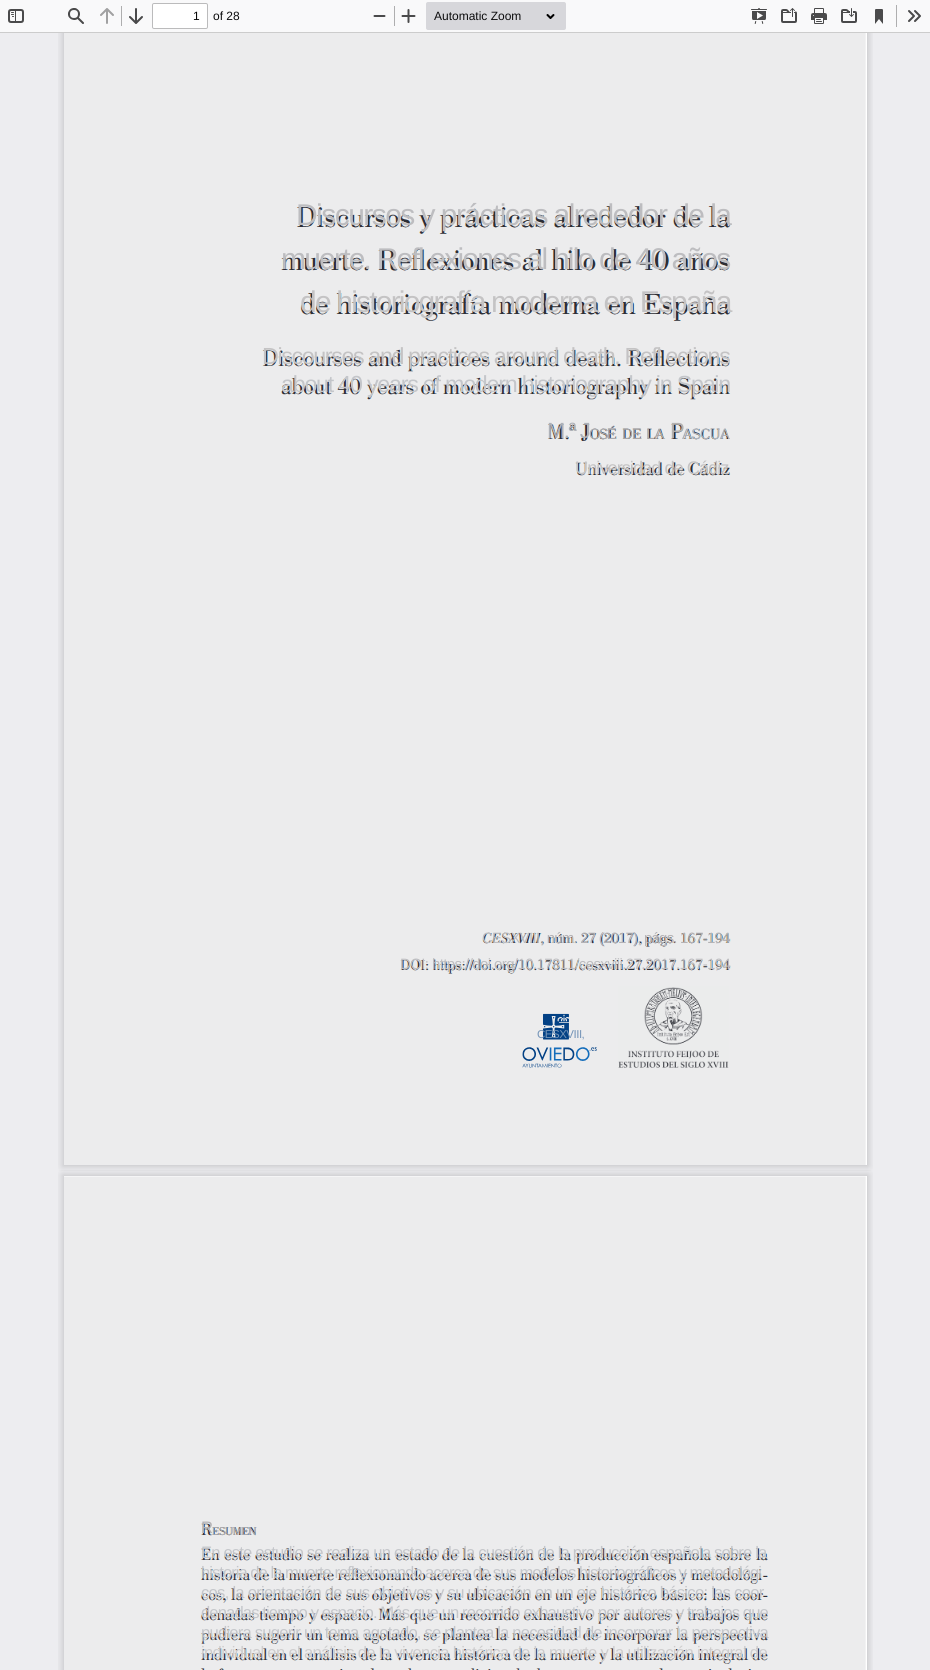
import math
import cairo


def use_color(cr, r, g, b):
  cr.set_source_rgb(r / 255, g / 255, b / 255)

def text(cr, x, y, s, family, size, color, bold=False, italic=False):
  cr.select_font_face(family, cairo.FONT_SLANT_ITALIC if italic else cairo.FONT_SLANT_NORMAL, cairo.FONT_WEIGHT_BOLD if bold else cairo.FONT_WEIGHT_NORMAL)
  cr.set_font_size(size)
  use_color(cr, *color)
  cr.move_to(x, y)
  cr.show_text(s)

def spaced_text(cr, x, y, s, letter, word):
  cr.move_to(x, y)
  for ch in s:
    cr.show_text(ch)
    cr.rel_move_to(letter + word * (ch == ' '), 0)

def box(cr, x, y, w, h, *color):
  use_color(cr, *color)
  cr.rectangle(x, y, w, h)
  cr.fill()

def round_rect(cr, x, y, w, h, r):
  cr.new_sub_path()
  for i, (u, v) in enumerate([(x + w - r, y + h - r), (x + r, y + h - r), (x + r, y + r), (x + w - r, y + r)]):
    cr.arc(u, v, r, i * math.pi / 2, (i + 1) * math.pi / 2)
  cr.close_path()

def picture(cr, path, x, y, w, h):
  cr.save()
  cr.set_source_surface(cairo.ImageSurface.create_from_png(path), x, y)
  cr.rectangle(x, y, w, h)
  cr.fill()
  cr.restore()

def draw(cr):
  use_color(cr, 237, 237, 240)
  cr.paint()
  box(cr, 0, 32, 930, 1, 204, 204, 204)
  box(cr, 0, 0, 930, 32, 249, 249, 250)
  picture(cr, "img_01.png", 8, 9, 16, 14)
  picture(cr, "img_02.png", 68, 8, 16, 16)
  picture(cr, "img_03.png", 100, 8, 14, 16)
  box(cr, 121, 6, 1, 20, 174, 174, 175)
  picture(cr, "img_04.png", 129, 8, 14, 16)
  use_color(cr, 255, 255, 255)
  round_rect(cr, 152.5, 3.5, 55, 25, 1.5)
  cr.fill_preserve()
  use_color(cr, 187, 187, 188)
  cr.set_line_width(1)
  cr.stroke()
  picture(cr, "img_05.png", 373, 15, 13, 2)
  box(cr, 394, 6, 1, 20, 174, 174, 175)
  picture(cr, "img_06.png", 401, 9, 15, 14)
  use_color(cr, 215, 215, 219)
  round_rect(cr, 426, 2, 140, 28, 2)
  cr.fill()
  picture(cr, "img_07.png", 546, 14, 9, 5)
  picture(cr, "img_08.png", 751, 8, 16, 16)
  picture(cr, "img_09.png", 781, 8, 16, 15)
  picture(cr, "img_10.png", 811, 8, 16, 16)
  picture(cr, "img_11.png", 841, 8, 16, 15)
  picture(cr, "img_12.png", 875, 9, 8, 15)
  box(cr, 896, 5, 1, 22, 174, 174, 175)
  picture(cr, "img_13.png", 908, 10, 13, 12)
  box(cr, 866, 33, 1, 1132, 255, 255, 255)
  picture(cr, "img_14.png", 58, 33, 815, 1138)
  picture(cr, "img_15.png", 64, 33, 802, 1132)
  box(cr, 866, 1176, 1, 494, 255, 255, 255)
  picture(cr, "img_16.png", 58, 1170, 815, 500)
  picture(cr, "img_17.png", 64, 1176, 802, 494)
  text(cr, 193, 20, "1", "Liberation Sans", 12, (6, 6, 6))
  text(cr, 213, 20, "of 28", "Liberation Sans", 12, (12, 12, 13))
  text(cr, 434, 20, "Automatic Zoom", "Liberation Sans", 12, (12, 12, 13))
  cr.set_font_size(30)
  use_color(cr, 189, 189, 192)
  spaced_text(cr, 296, 225, "Discursos y prácticas alrededor de la", -1.55, 0)
  spaced_text(cr, 281, 269, "muerte. Refl exiones al hilo de 40 años", -1.8, 0)
  use_color(cr, 196, 195, 196)
  spaced_text(cr, 300, 312, "de historiografía moderna en España", -1.8, 0)
  cr.set_font_size(23.3)
  spaced_text(cr, 262, 364, "Discourses and practices around death. Refl ections", -1.4, 0)
  use_color(cr, 196, 198, 202)
  spaced_text(cr, 281, 392, "about 40 years of modern historiography in Spain", -1.25, 0)
  cr.set_font_size(22)
  use_color(cr, 173, 177, 184)
  spaced_text(cr, 547, 438, "M.ª J", -1.5, 0)
  cr.set_font_size(15)
  use_color(cr, 170, 170, 175)
  spaced_text(cr, 589, 439, "OSÉ", -2, 0)
  use_color(cr, 170, 166, 166)
  spaced_text(cr, 622, 439, "DE", -0.85, 0)
  text(cr, 646, 439, "LA", "Liberation Sans", 15, (170, 166, 166))
  cr.set_font_size(22)
  use_color(cr, 179, 176, 174)
  spaced_text(cr, 670, 438, "P", -2, 0)
  cr.set_font_size(15)
  use_color(cr, 173, 177, 184)
  spaced_text(cr, 682, 439, "ASCUA", -1, 0)
  cr.set_font_size(18.25)
  use_color(cr, 196, 195, 196)
  spaced_text(cr, 575, 474, "Universidad de Cádiz", -1, 0)
  cr.set_font_size(15)
  use_color(cr, 189, 189, 192)
  spaced_text(cr, 482, 943, "CESXVIII", -0.75, 0)
  use_color(cr, 180, 178, 181)
  spaced_text(cr, 540, 943, ", núm. 27 (2017), págs. 167-194", -0.8, 0)
  use_color(cr, 189, 189, 192)
  spaced_text(cr, 400, 969, "DOI: https://doi.org/10.17811/cesxviii.27.2017.167-194", -0.6, 0)
  cr.set_font_size(11.5)
  use_color(cr, 117, 149, 184)
  spaced_text(cr, 537, 1038, "CESXVIII,", -0.5, 0)
  text(cr, 201, 1533, "R", "Liberation Sans", 16.65, (180, 178, 181))
  cr.set_font_size(11.5)
  use_color(cr, 170, 170, 175)
  spaced_text(cr, 212, 1535, "ESUMEN", -1, 0)
  cr.set_font_size(16.65)
  use_color(cr, 196, 198, 202)
  spaced_text(cr, 201, 1558, "En este estudio se realiza un estado de la cuestión de la producción española sobre la", -0.85, 0)
  spaced_text(cr, 201, 1578, "historia de la muerte reflexionando acerca de sus modelos historiográficos y metodológi", -1, 0)
  spaced_text(cr, 201, 1598, "cos, la orientación de sus objetivos y su ubicación en un eje histórico básico: las coor", -0.75, 0)
  spaced_text(cr, 201, 1618, "denadas tiempo y espacio. Más que un recorrido exhaustivo por autores y trabajos que", -0.9, 0)
  spaced_text(cr, 201, 1638, "pudiera sugerir un tema agotado, se plantea la necesidad de incorporar la perspectiva", -0.8, 0)
  use_color(cr, 205, 204, 205)
  spaced_text(cr, 201, 1658, "individual en el análisis de la vivencia histórica de la muerte y la utilización integral de", -0.7, 0)


surface = cairo.ImageSurface(cairo.FORMAT_RGB24, 930, 1670)
cr = cairo.Context(surface)
options = cairo.FontOptions()
options.set_hint_metrics(cairo.HINT_METRICS_OFF)
options.set_hint_style(cairo.HINT_STYLE_NONE)
cr.set_font_options(options)
cr.set_miter_limit(4)
draw(cr)
surface.write_to_png("out.png")
